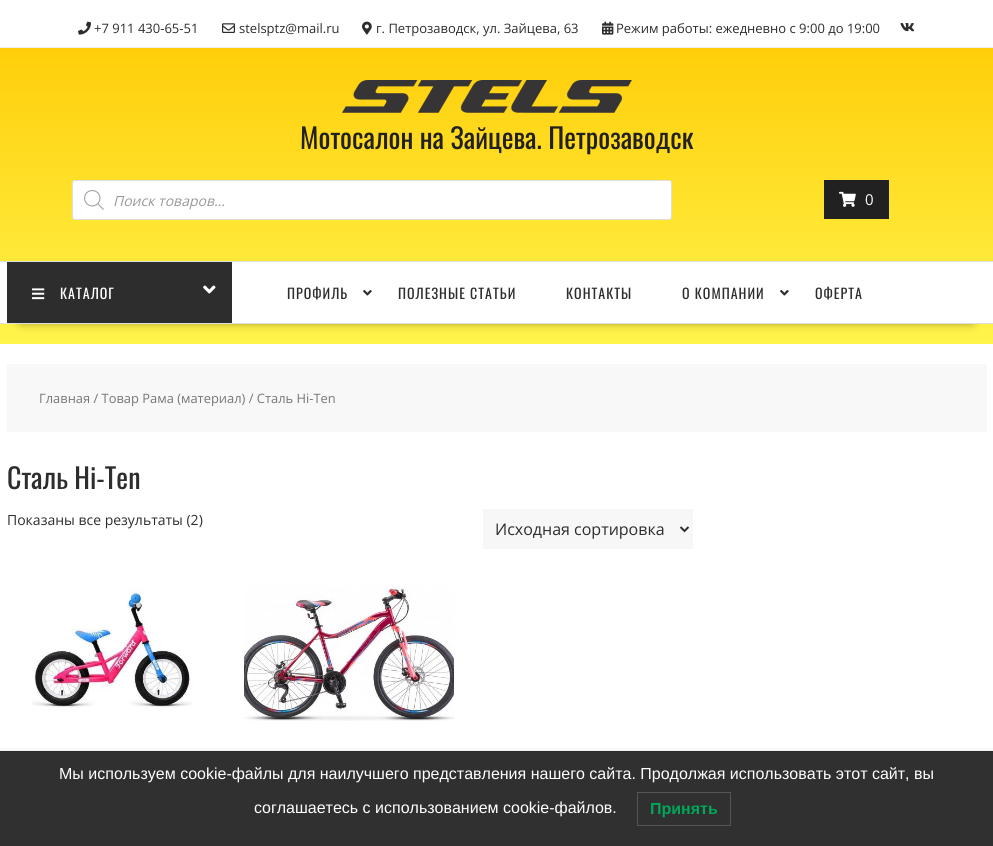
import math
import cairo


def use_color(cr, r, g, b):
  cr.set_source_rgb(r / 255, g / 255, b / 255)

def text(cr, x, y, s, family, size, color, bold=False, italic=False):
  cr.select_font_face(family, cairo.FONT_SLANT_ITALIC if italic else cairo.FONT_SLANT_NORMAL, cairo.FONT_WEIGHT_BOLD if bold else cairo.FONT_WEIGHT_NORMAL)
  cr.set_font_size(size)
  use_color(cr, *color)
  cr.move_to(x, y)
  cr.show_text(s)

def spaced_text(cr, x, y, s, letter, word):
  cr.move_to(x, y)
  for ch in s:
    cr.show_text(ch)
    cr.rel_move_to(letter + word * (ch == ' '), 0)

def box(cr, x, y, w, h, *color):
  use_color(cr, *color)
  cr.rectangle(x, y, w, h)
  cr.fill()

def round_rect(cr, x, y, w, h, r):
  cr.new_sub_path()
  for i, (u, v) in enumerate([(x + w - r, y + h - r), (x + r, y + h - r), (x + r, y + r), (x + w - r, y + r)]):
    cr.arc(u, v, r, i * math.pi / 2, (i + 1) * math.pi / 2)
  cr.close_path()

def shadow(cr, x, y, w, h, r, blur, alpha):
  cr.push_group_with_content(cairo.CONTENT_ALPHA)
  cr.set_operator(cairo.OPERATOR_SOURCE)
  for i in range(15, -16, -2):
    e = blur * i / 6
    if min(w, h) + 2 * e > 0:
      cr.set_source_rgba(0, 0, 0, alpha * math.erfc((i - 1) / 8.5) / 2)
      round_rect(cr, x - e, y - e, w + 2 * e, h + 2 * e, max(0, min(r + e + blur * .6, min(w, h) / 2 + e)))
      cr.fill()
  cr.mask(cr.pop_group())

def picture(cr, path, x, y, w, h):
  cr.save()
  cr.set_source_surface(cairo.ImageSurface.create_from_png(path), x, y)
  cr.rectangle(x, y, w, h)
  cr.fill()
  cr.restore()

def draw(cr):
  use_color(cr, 255, 255, 255)
  cr.paint()
  box(cr, 0, 47, 993, 1, 238, 238, 238)
  picture(cr, "img_01.png", 78, 21, 13, 14)
  picture(cr, "img_02.png", 222, 23, 13, 10)
  picture(cr, "img_03.png", 362, 21, 10, 14)
  picture(cr, "img_04.png", 602, 21, 12, 14)
  picture(cr, "img_05.png", 900, 23, 15, 9)
  gradient = cairo.LinearGradient(497, 48, 497, 344)
  gradient.add_color_stop_rgba(0, 1, 0.808, 0.039, 1)
  gradient.add_color_stop_rgba(1, 1, 0.957, 0.294, 1)
  cr.set_source(gradient)
  cr.rectangle(0, 48, 993, 296)
  cr.fill()
  picture(cr, "img_06.png", 342, 80, 290, 33)
  use_color(cr, 255, 255, 255)
  round_rect(cr, 72.5, 180.5, 599, 39, 2.5)
  cr.fill_preserve()
  use_color(cr, 221, 221, 221)
  cr.set_line_width(1)
  cr.stroke()
  picture(cr, "img_07.png", 84, 190, 20, 20)
  box(cr, 824, 180, 65, 39, 33, 33, 33)
  picture(cr, "img_08.png", 839, 191, 17, 16)
  use_color(cr, 0, 0, 0)
  shadow(cr, 21, 299, 951, 21, 0, 5.5, 0.75)
  box(cr, 0, 262, 993, 61, 255, 255, 255)
  box(cr, 0, 261, 993, 1, 222, 222, 222)
  box(cr, 0, 323, 993, 1, 222, 222, 222)
  box(cr, 7, 262, 225, 61, 45, 45, 45)
  picture(cr, "img_09.png", 32, 288, 13, 12)
  picture(cr, "img_10.png", 203, 285, 13, 9)
  picture(cr, "img_11.png", 363, 290, 9, 6)
  picture(cr, "img_11.png", 780, 290, 9, 6)
  box(cr, 7, 364, 980, 68, 248, 248, 248)
  box(cr, 483, 509, 210, 40, 247, 247, 247)
  cr.new_path()
  cr.move_to(680.5, 527)
  cr.line_to(684.5, 531)
  cr.line_to(688.5, 527)
  use_color(cr, 45, 45, 45)
  cr.set_line_width(2)
  cr.stroke()
  picture(cr, "img_12.png", 32, 588, 160, 120)
  picture(cr, "img_13.png", 244, 586, 210, 135)
  cr.save()
  cr.rectangle(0, 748, 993, 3)
  cr.clip()
  use_color(cr, 0, 0, 0)
  shadow(cr, 0, 751, 993, 95, 0, 4, 0.1)
  cr.restore()
  cr.set_source_rgba(0.169, 0.169, 0.169, 0.97)
  cr.rectangle(0, 752, 993, 94)
  cr.fill()
  box(cr, 0, 751, 993, 1, 43, 43, 43)
  cr.rectangle(637.5, 792.5, 93, 33)
  use_color(cr, 85, 85, 85)
  cr.set_line_width(1)
  cr.stroke()
  text(cr, 94, 33, "+7 911 430-65-51", "Open Sans", 13, (45, 45, 45))
  text(cr, 239, 33, "stelsptz@mail.ru", "Open Sans", 13, (45, 45, 45))
  text(cr, 376, 33, "г. Петрозаводск, ул. Зайцева, 63", "Open Sans", 13, (45, 45, 45))
  text(cr, 616, 33, "Режим работы: ежедневно с 9:00 до 19:00", "Open Sans", 13, (45, 45, 45))
  text(cr, 300, 149, "Мотосалон на Зайцева. Петрозаводск", "Oswald", 28, (33, 33, 33))
  text(cr, 113, 206, "Поиск товаров...", "Open Sans", 14, (153, 153, 153), italic=True)
  text(cr, 865, 205, "0", "Open Sans", 15, (255, 255, 255))
  cr.select_font_face("Oswald")
  cr.set_font_size(14)
  spaced_text(cr, 60, 299, "КАТАЛОГ", 1, 0)
  use_color(cr, 45, 45, 45)
  spaced_text(cr, 287, 299, "ПРОФИЛЬ", 1, 0)
  spaced_text(cr, 398, 299, "ПОЛЕЗНЫЕ СТАТЬИ", 1, 0)
  spaced_text(cr, 566, 299, "КОНТАКТЫ", 1, 0)
  spaced_text(cr, 682, 299, "О КОМПАНИИ", 1, 0)
  spaced_text(cr, 815, 299, "ОФЕРТА", 1, 0)
  text(cr, 39, 403, "Главная / Товар Рама (материал) / Сталь Hi-Ten", "Open Sans", 12.9, (119, 119, 119))
  text(cr, 7, 489, "Сталь Hi-Ten", "Oswald", 28, (45, 45, 45))
  text(cr, 7, 525, "Показаны все результаты (2)", "Open Sans", 14, (45, 45, 45))
  text(cr, 495, 535, "Исходная сортировка", "Open Sans", 16, (45, 45, 45))
  text(cr, 59, 779, "Мы используем cookie-файлы для наилучшего представления нашего сайта. Продолжая использовать этот сайт, вы", "Liberation Sans", 16, (255, 255, 255))
  text(cr, 254, 813, "соглашаетесь с использованием cookie-файлов.", "Liberation Sans", 16, (255, 255, 255))
  text(cr, 650, 814, "Принять", "Liberation Sans", 16, (0, 166, 90), bold=True)


surface = cairo.ImageSurface(cairo.FORMAT_RGB24, 993, 846)
cr = cairo.Context(surface)
options = cairo.FontOptions()
options.set_hint_metrics(cairo.HINT_METRICS_OFF)
options.set_hint_style(cairo.HINT_STYLE_NONE)
cr.set_font_options(options)
cr.set_miter_limit(4)
draw(cr)
surface.write_to_png("out.png")
